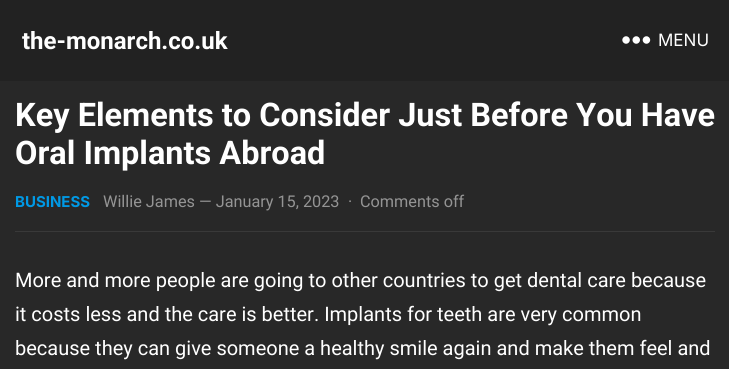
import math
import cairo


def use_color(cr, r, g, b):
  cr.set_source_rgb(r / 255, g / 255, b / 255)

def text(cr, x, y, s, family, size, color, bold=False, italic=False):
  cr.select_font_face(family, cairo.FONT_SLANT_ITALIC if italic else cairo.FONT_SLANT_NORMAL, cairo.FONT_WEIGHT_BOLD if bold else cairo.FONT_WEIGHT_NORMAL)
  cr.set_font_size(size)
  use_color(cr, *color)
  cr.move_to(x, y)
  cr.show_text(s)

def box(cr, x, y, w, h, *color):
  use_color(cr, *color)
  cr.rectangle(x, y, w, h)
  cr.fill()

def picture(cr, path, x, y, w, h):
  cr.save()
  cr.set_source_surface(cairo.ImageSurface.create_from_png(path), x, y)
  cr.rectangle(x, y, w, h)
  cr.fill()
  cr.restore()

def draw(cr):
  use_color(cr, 40, 40, 40)
  cr.paint()
  box(cr, 0, 0, 729, 81, 34, 34, 34)
  picture(cr, "img_01.png", 622, 36, 29, 8)
  box(cr, 15, 231, 700, 1, 57, 57, 57)
  text(cr, 22, 49, "the-monarch.co.uk", "Roboto", 24, (255, 255, 255), bold=True)
  text(cr, 658, 46, "MENU", "Inter", 17, (255, 255, 255))
  text(cr, 15, 126, "Key Elements to Consider Just Before You Have", "Roboto", 32.5, (255, 255, 255), bold=True)
  text(cr, 15, 164, "Oral Implants Abroad", "Roboto", 32.5, (255, 255, 255), bold=True)
  text(cr, 15, 207, "BUSINESS", "Inter", 15, (0, 153, 229), bold=True)
  text(cr, 103, 207, "Willie James — January 15, 2023", "Roboto", 16.25, (148, 148, 148))
  text(cr, 348, 207, "·", "Roboto", 16.25, (148, 148, 148))
  text(cr, 360, 207, "Comments off", "Roboto", 16.25, (148, 148, 148))
  text(cr, 15, 287, "More and more people are going to other countries to get dental care because", "Roboto", 20, (255, 255, 255))
  text(cr, 15, 321, "it costs less and the care is better. Implants for teeth are very common", "Roboto", 20, (255, 255, 255))
  text(cr, 15, 355, "because they can give someone a healthy smile again and make them feel and", "Roboto", 20, (255, 255, 255))


surface = cairo.ImageSurface(cairo.FORMAT_RGB24, 729, 369)
cr = cairo.Context(surface)
options = cairo.FontOptions()
options.set_hint_metrics(cairo.HINT_METRICS_OFF)
options.set_hint_style(cairo.HINT_STYLE_NONE)
cr.set_font_options(options)
cr.set_miter_limit(4)
draw(cr)
surface.write_to_png("out.png")
